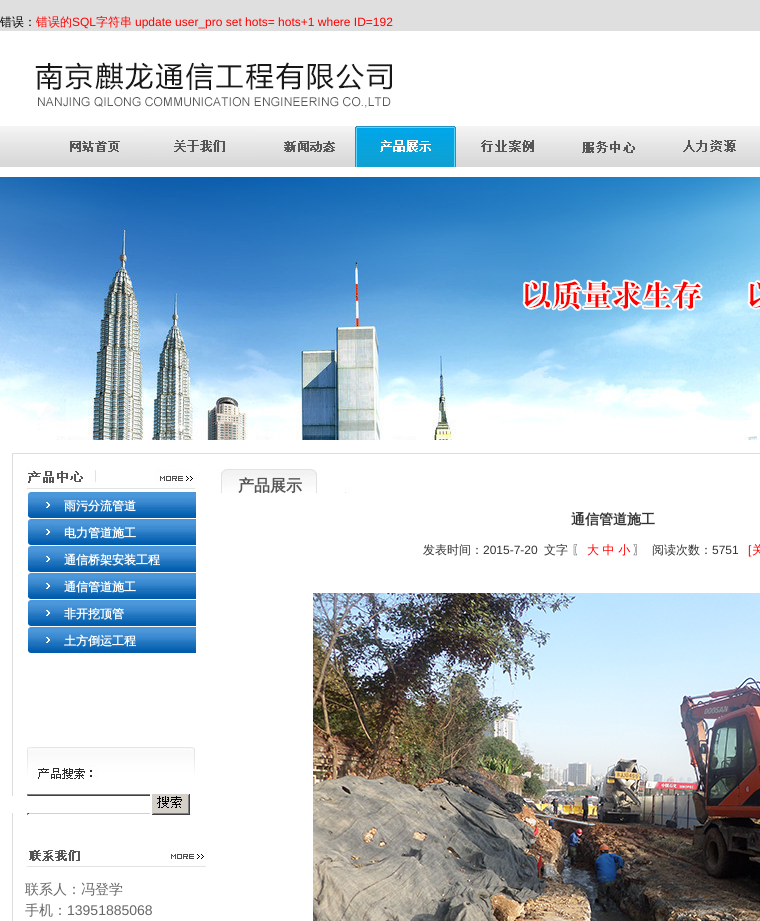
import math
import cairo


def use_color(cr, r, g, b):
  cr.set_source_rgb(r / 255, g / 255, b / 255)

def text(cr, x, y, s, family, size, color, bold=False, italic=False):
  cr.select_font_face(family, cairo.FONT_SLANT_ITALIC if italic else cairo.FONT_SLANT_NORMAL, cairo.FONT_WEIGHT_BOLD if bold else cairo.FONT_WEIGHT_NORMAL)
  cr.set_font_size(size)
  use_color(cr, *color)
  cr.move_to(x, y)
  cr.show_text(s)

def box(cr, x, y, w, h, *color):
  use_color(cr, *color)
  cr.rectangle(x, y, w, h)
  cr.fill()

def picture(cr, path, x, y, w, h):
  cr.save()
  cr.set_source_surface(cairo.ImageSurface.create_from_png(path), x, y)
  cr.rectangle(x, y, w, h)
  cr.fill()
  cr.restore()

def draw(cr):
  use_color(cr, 223, 223, 223)
  cr.paint()
  box(cr, 0, 108, 760, 813, 255, 255, 255)
  picture(cr, "img_01.png", 0, 31, 760, 77)
  picture(cr, "img_02.png", 0, 126, 46, 41)
  picture(cr, "img_03.png", 46, 126, 101, 41)
  picture(cr, "img_04.png", 147, 126, 109, 41)
  picture(cr, "img_05.png", 256, 126, 99, 41)
  picture(cr, "img_06.png", 355, 126, 101, 41)
  picture(cr, "img_07.png", 456, 126, 102, 41)
  picture(cr, "img_08.png", 558, 126, 99, 41)
  picture(cr, "img_09.png", 657, 126, 103, 41)
  picture(cr, "img_10.png", 0, 177, 760, 263)
  box(cr, 12, 489, 1, 432, 221, 221, 221)
  picture(cr, "img_11.png", 12, 440, 196, 49)
  picture(cr, "img_12.png", 28, 492, 168, 26)
  picture(cr, "img_12.png", 28, 519, 168, 26)
  picture(cr, "img_12.png", 28, 546, 168, 26)
  picture(cr, "img_12.png", 28, 573, 168, 26)
  picture(cr, "img_12.png", 28, 600, 168, 26)
  picture(cr, "img_12.png", 28, 627, 168, 26)
  picture(cr, "img_13.png", 27, 747, 168, 32)
  picture(cr, "img_14.png", 27, 794, 123, 21)
  box(cr, 12, 796, 138, 17, 255, 255, 255)
  picture(cr, "img_15.png", 152, 794, 38, 21)
  picture(cr, "img_16.png", 26, 848, 181, 19)
  picture(cr, "img_17.png", 208, 453, 552, 40)
  picture(cr, "img_18.png", 313, 593, 447, 328)
  text(cr, 0, 26, "错误：", "WenQuanYi Zen Hei Medium", 12, (0, 0, 0))
  text(cr, 36, 26, "错误的", "WenQuanYi Zen Hei Medium", 12, (255, 0, 0))
  text(cr, 72, 26, "SQL", "Liberation Sans", 12, (255, 0, 0))
  text(cr, 96, 26, "字符串", "WenQuanYi Zen Hei Medium", 12, (255, 0, 0))
  text(cr, 135, 26, "update user_pro set hots= hots+1 where ID=192", "Liberation Sans", 12, (255, 0, 0))
  text(cr, 64, 510, "雨污分流管道", "WenQuanYi Zen Hei", 12, (255, 255, 255), bold=True)
  text(cr, 64, 537, "电力管道施工", "WenQuanYi Zen Hei", 12, (255, 255, 255), bold=True)
  text(cr, 64, 564, "通信桥架安装工程", "WenQuanYi Zen Hei", 12, (255, 255, 255), bold=True)
  text(cr, 64, 591, "通信管道施工", "WenQuanYi Zen Hei", 12, (255, 255, 255), bold=True)
  text(cr, 64, 618, "非开挖顶管", "WenQuanYi Zen Hei", 12, (255, 255, 255), bold=True)
  text(cr, 64, 645, "土方倒运工程", "WenQuanYi Zen Hei", 12, (255, 255, 255), bold=True)
  text(cr, 25, 894, "联系人：冯登学", "WenQuanYi Zen Hei Medium", 14, (102, 102, 102))
  text(cr, 25, 915, "手机：", "WenQuanYi Zen Hei Medium", 14, (102, 102, 102))
  text(cr, 67, 915, "13951885068", "Liberation Sans", 14, (102, 102, 102))
  text(cr, 238, 491, "产品展示", "WenQuanYi Zen Hei", 16, (85, 85, 85), bold=True)
  text(cr, 571, 524, "通信管道施工", "WenQuanYi Zen Hei", 14, (51, 51, 51), bold=True)
  text(cr, 423, 554, "发表时间：", "WenQuanYi Zen Hei Medium", 12, (51, 51, 51))
  text(cr, 483, 554, "2015-7-20", "Liberation Sans", 12, (51, 51, 51))
  text(cr, 544, 554, "文字 〖", "WenQuanYi Zen Hei Medium", 12, (51, 51, 51))
  text(cr, 587, 554, "大 中 小", "WenQuanYi Zen Hei Medium", 12, (255, 0, 0))
  text(cr, 633, 554, "〗", "WenQuanYi Zen Hei Medium", 12, (51, 51, 51))
  text(cr, 652, 554, "阅读次数：", "WenQuanYi Zen Hei Medium", 12, (51, 51, 51))
  text(cr, 712, 554, "5751", "Liberation Sans", 12, (51, 51, 51))
  text(cr, 748, 554, "[", "Liberation Sans", 12, (255, 0, 0))
  text(cr, 752, 554, "关", "WenQuanYi Zen Hei Medium", 12, (255, 0, 0))


surface = cairo.ImageSurface(cairo.FORMAT_RGB24, 760, 921)
cr = cairo.Context(surface)
options = cairo.FontOptions()
options.set_hint_metrics(cairo.HINT_METRICS_OFF)
options.set_hint_style(cairo.HINT_STYLE_NONE)
cr.set_font_options(options)
cr.set_miter_limit(4)
draw(cr)
surface.write_to_png("out.png")
